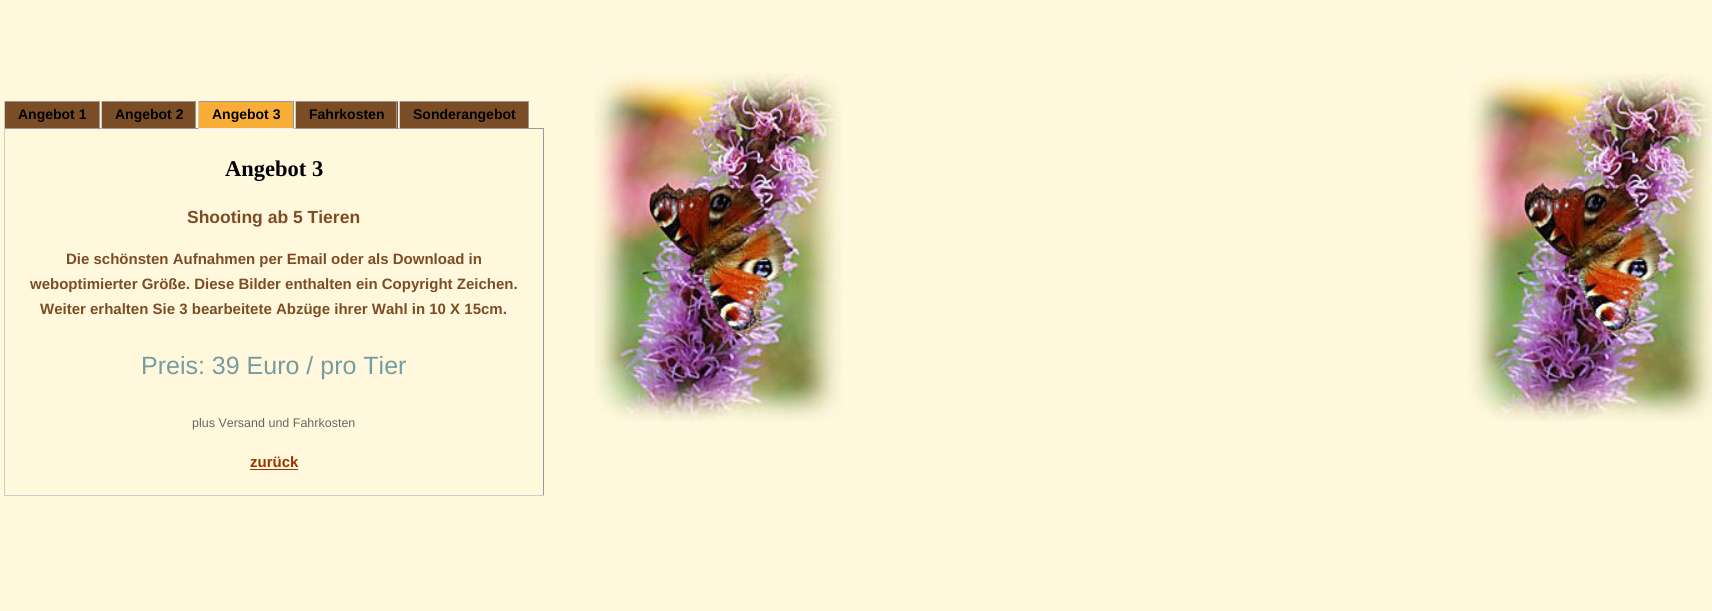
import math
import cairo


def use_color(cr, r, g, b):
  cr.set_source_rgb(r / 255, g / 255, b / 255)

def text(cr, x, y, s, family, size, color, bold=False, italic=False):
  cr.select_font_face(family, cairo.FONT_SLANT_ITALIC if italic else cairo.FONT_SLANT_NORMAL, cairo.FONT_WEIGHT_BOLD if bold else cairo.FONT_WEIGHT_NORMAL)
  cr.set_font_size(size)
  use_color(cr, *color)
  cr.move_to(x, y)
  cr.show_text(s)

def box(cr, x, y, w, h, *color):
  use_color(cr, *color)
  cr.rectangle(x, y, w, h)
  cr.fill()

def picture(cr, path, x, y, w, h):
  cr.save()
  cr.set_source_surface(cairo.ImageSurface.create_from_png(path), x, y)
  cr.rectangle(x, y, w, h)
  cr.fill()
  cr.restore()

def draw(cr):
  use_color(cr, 255, 248, 220)
  cr.paint()
  picture(cr, "img_01.png", 594, 73, 1118, 348)
  box(cr, 5, 102, 94, 26, 122, 77, 38)
  box(cr, 4, 101, 96, 1, 153, 153, 153)
  box(cr, 99, 101, 1, 28, 153, 153, 153)
  box(cr, 100, 128, 444, 1, 153, 153, 153)
  box(cr, 543, 128, 1, 368, 153, 153, 153)
  box(cr, 4, 495, 540, 1, 204, 204, 204)
  box(cr, 4, 128, 1, 368, 204, 204, 204)
  box(cr, 4, 128, 96, 1, 153, 153, 153)
  box(cr, 4, 101, 1, 28, 204, 204, 204)
  box(cr, 102, 102, 93, 26, 122, 77, 38)
  box(cr, 101, 101, 95, 1, 153, 153, 153)
  box(cr, 195, 101, 1, 28, 153, 153, 153)
  box(cr, 101, 101, 1, 28, 204, 204, 204)
  box(cr, 199, 102, 94, 26, 248, 173, 54)
  box(cr, 198, 101, 96, 1, 153, 153, 153)
  box(cr, 293, 101, 1, 28, 153, 153, 153)
  box(cr, 198, 128, 96, 1, 238, 238, 238)
  box(cr, 198, 101, 1, 28, 204, 204, 204)
  box(cr, 296, 102, 102, 26, 122, 77, 38)
  box(cr, 295, 101, 103, 1, 153, 153, 153)
  box(cr, 396, 101, 1, 28, 153, 153, 153)
  box(cr, 295, 101, 1, 28, 204, 204, 204)
  box(cr, 400, 102, 128, 26, 122, 77, 38)
  box(cr, 399, 101, 130, 1, 153, 153, 153)
  box(cr, 528, 101, 1, 28, 153, 153, 153)
  box(cr, 399, 101, 1, 28, 204, 204, 204)
  box(cr, 250, 469, 48, 1, 153, 51, 0)
  text(cr, 18, 119, "Angebot 1", "Liberation Sans", 14, (0, 0, 0), bold=True)
  text(cr, 115, 119, "Angebot 2", "Liberation Sans", 14, (0, 0, 0), bold=True)
  text(cr, 212, 119, "Angebot 3", "Liberation Sans", 14, (0, 0, 0), bold=True)
  text(cr, 309, 119, "Fahrkosten", "Liberation Sans", 14, (0, 0, 0), bold=True)
  text(cr, 413, 119, "Sonderangebot", "Liberation Sans", 14, (0, 0, 0), bold=True)
  text(cr, 225, 176, "Angebot 3", "Liberation Serif", 22.5, (0, 0, 0), bold=True)
  text(cr, 187, 223, "Shooting ab 5 Tieren", "Liberation Sans", 17.5, (124, 77, 37), bold=True)
  text(cr, 66, 264, "Die schönsten Aufnahmen per Email oder als Download in", "Liberation Sans", 15, (124, 77, 37), bold=True)
  text(cr, 30, 289, "weboptimierter Größe. Diese Bilder enthalten ein Copyright Zeichen.", "Liberation Sans", 15, (124, 77, 37), bold=True)
  text(cr, 40, 314, "Weiter erhalten Sie 3 bearbeitete Abzüge ihrer Wahl in 10 X 15cm.", "Liberation Sans", 15, (124, 77, 37), bold=True)
  text(cr, 141, 374, "Preis: 39 Euro / pro Tier", "Liberation Sans", 25, (117, 157, 161))
  text(cr, 192, 427, "plus Versand und Fahrkosten", "Liberation Sans", 12.5, (102, 102, 102))
  text(cr, 250, 467, "zurück", "Liberation Sans", 15, (153, 51, 0), bold=True)


surface = cairo.ImageSurface(cairo.FORMAT_RGB24, 1712, 611)
cr = cairo.Context(surface)
options = cairo.FontOptions()
options.set_hint_metrics(cairo.HINT_METRICS_OFF)
options.set_hint_style(cairo.HINT_STYLE_NONE)
cr.set_font_options(options)
cr.set_miter_limit(4)
draw(cr)
surface.write_to_png("out.png")
